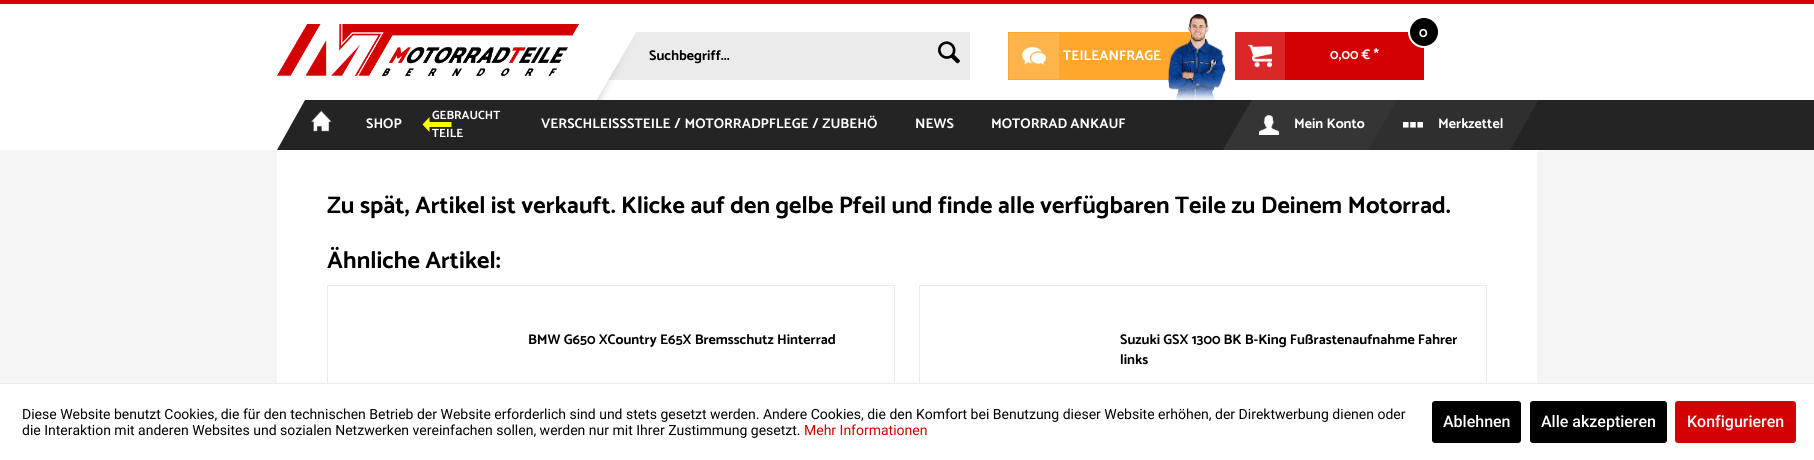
import math
import cairo


def use_color(cr, r, g, b):
  cr.set_source_rgb(r / 255, g / 255, b / 255)

def text(cr, x, y, s, family, size, color, bold=False, italic=False):
  cr.select_font_face(family, cairo.FONT_SLANT_ITALIC if italic else cairo.FONT_SLANT_NORMAL, cairo.FONT_WEIGHT_BOLD if bold else cairo.FONT_WEIGHT_NORMAL)
  cr.set_font_size(size)
  use_color(cr, *color)
  cr.move_to(x, y)
  cr.show_text(s)

def spaced_text(cr, x, y, s, letter, word):
  cr.move_to(x, y)
  for ch in s:
    cr.show_text(ch)
    cr.rel_move_to(letter + word * (ch == ' '), 0)

def box(cr, x, y, w, h, *color):
  use_color(cr, *color)
  cr.rectangle(x, y, w, h)
  cr.fill()

def round_rect(cr, x, y, w, h, r):
  cr.new_sub_path()
  for i, (u, v) in enumerate([(x + w - r, y + h - r), (x + r, y + h - r), (x + r, y + r), (x + w - r, y + r)]):
    cr.arc(u, v, r, i * math.pi / 2, (i + 1) * math.pi / 2)
  cr.close_path()

def picture(cr, path, x, y, w, h):
  cr.save()
  cr.set_source_surface(cairo.ImageSurface.create_from_png(path), x, y)
  cr.rectangle(x, y, w, h)
  cr.fill()
  cr.restore()

def draw(cr):
  use_color(cr, 245, 245, 245)
  cr.paint()
  box(cr, 0, 4, 1814, 96, 255, 255, 255)
  box(cr, 0, 0, 1814, 4, 211, 1, 1)
  box(cr, 608, 32, 362, 48, 235, 235, 235)
  picture(cr, "img_01.png", 592, 32, 44, 68)
  picture(cr, "img_02.png", 277, 24, 303, 53)
  picture(cr, "img_03.png", 938, 41, 22, 23)
  box(cr, 1059, 33, 137, 46, 255, 167, 43)
  cr.rectangle(1008.5, 32.5, 188, 47)
  cr.set_line_width(1)
  cr.stroke()
  box(cr, 1009, 33, 50, 46, 255, 180, 75)
  picture(cr, "img_04.png", 1022, 47, 24, 18)
  picture(cr, "img_07.png", 0, 100, 1814, 50)
  use_color(cr, 53, 53, 53)
  cr.new_path()
  cr.move_to(1252, 100)
  cr.line_to(1400, 100)
  cr.line_to(1371, 150)
  cr.line_to(1223, 150)
  cr.close_path()
  cr.fill()
  cr.new_path()
  cr.move_to(1252, 100)
  cr.line_to(1253, 100)
  cr.line_to(1224, 150)
  cr.line_to(1223, 150)
  cr.close_path()
  cr.fill()
  picture(cr, "img_05.png", 1168, 14, 58, 87)
  box(cr, 1285, 32, 139, 48, 211, 1, 1)
  box(cr, 1235, 32, 50, 48, 218, 39, 39)
  picture(cr, "img_06.png", 1248, 44, 24, 24)
  use_color(cr, 0, 0, 0)
  cr.arc(1424, 32, 15, 0, 2 * math.pi)
  cr.fill_preserve()
  use_color(cr, 255, 255, 255)
  cr.set_line_width(2)
  cr.stroke()
  use_color(cr, 36, 36, 36)
  cr.new_path()
  cr.move_to(305, 100)
  cr.line_to(361, 100)
  cr.line_to(333, 150)
  cr.line_to(277, 150)
  cr.close_path()
  cr.fill()
  picture(cr, "img_08.png", 311, 110, 21, 22)
  cr.new_path()
  cr.move_to(360, 100)
  cr.line_to(536, 100)
  cr.line_to(507, 150)
  cr.line_to(332, 150)
  cr.close_path()
  cr.fill()
  picture(cr, "img_09.png", 1259, 115, 20, 20)
  use_color(cr, 47, 47, 47)
  cr.new_path()
  cr.move_to(1397, 100)
  cr.line_to(1538, 100)
  cr.line_to(1510, 150)
  cr.line_to(1368, 150)
  cr.close_path()
  cr.fill()
  cr.new_path()
  cr.move_to(1537, 100)
  cr.line_to(1538, 100)
  cr.line_to(1510, 150)
  cr.line_to(1509, 150)
  cr.close_path()
  cr.fill()
  picture(cr, "img_10.png", 1403, 122, 20, 6)
  box(cr, 277, 150, 1260, 233, 255, 255, 255)
  cr.rectangle(327.5, 285.5, 567, 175)
  use_color(cr, 235, 235, 235)
  cr.set_line_width(1)
  cr.stroke()
  cr.rectangle(919.5, 285.5, 567, 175)
  cr.stroke()
  box(cr, 0, 384, 1814, 76, 255, 255, 255)
  box(cr, 0, 383, 1814, 1, 235, 235, 235)
  use_color(cr, 0, 0, 0)
  round_rect(cr, 1432.5, 401.5, 88, 41, 2.5)
  cr.fill_preserve()
  cr.stroke()
  round_rect(cr, 1530.5, 401.5, 136, 41, 2.5)
  cr.fill_preserve()
  cr.stroke()
  use_color(cr, 211, 1, 1)
  round_rect(cr, 1675, 401, 121, 42, 3)
  cr.fill()
  text(cr, 649, 60, "Suchbegriff...", "Catamaran", 14, (0, 0, 0), bold=True)
  text(cr, 1063, 60, "TEILEANFRAGE", "Catamaran", 14, (255, 255, 255), bold=True)
  text(cr, 1330, 59, "0,00 € *", "Catamaran", 14, (255, 255, 255), bold=True)
  text(cr, 1419, 37, "0", "Catamaran", 14, (255, 255, 255), bold=True)
  text(cr, 366, 128, "SHOP", "Catamaran", 14, (255, 255, 255), bold=True)
  text(cr, 432, 119, "GEBRAUCHT", "Catamaran", 12, (255, 255, 255), bold=True)
  use_color(cr, 255, 255, 0)
  cr.new_path()
  cr.move_to(429.5, 132)
  cr.line_to(429.5, 127)
  cr.line_to(451.5, 127)
  cr.line_to(451.5, 122)
  cr.line_to(429.5, 122)
  cr.line_to(429.5, 117)
  cr.line_to(422.5, 124.5)
  cr.close_path()
  cr.fill()
  text(cr, 432, 137, "TEILE", "Catamaran", 12, (255, 255, 255), bold=True)
  text(cr, 541, 128, "VERSCHLEISS", "Catamaran", 14, (255, 255, 255), bold=True)
  spaced_text(cr, 627, 128, "STEILE / MOTORRADPFLEGE / ZUBEHÖ", 0, 0.5)
  text(cr, 915, 128, "NEWS", "Catamaran", 14, (255, 255, 255), bold=True)
  text(cr, 991, 128, "MOTORRAD ANKAUF", "Catamaran", 14, (255, 255, 255), bold=True)
  text(cr, 1294, 128, "Mein Konto", "Catamaran", 14, (255, 255, 255), bold=True)
  text(cr, 1438, 128, "Merkzettel", "Catamaran", 14, (255, 255, 255), bold=True)
  text(cr, 327, 213, "Zu spät, Artikel ist verkauft. Klicke auf den gelbe Pfeil und finde alle verfügbaren Teile zu Deinem Motorrad.", "Catamaran", 24, (0, 0, 0), bold=True)
  text(cr, 327, 268, "Ähnliche Artikel:", "Catamaran", 24, (0, 0, 0), bold=True)
  text(cr, 528, 344, "BMW G650 XCountry E65X Bremsschutz Hinterrad", "Catamaran", 14, (0, 0, 0), bold=True)
  text(cr, 1120, 344, "Suzuki GSX 1300 BK B-King Fußrastenaufnahme Fahrer", "Catamaran", 14, (0, 0, 0), bold=True)
  text(cr, 1120, 364, "links", "Catamaran", 14, (0, 0, 0), bold=True)
  text(cr, 22, 419, "Diese Website benutzt Cookies, die für den technischen Betrieb der Website erforderlich sind und stets gesetzt werden. Andere Cookies, die den Komfort bei Benutzung dieser Website erhöhen, der Direktwerbung dienen oder", "Roboto", 14, (0, 0, 0))
  text(cr, 22, 435, "die Interaktion mit anderen Websites und sozialen Netzwerken vereinfachen sollen, werden nur mit Ihrer Zustimmung gesetzt.", "Roboto", 14, (0, 0, 0))
  text(cr, 804, 435, "Mehr Informationen", "Roboto", 14, (211, 1, 1))
  text(cr, 1443, 427, "Ablehnen", "Roboto Medium", 16, (255, 255, 255))
  text(cr, 1541, 427, "Alle akzeptieren", "Roboto Medium", 16, (255, 255, 255))
  text(cr, 1687, 427, "Konfigurieren", "Roboto Medium", 16, (255, 255, 255))


surface = cairo.ImageSurface(cairo.FORMAT_RGB24, 1814, 460)
cr = cairo.Context(surface)
options = cairo.FontOptions()
options.set_hint_metrics(cairo.HINT_METRICS_OFF)
options.set_hint_style(cairo.HINT_STYLE_NONE)
cr.set_font_options(options)
cr.set_miter_limit(4)
draw(cr)
surface.write_to_png("out.png")
